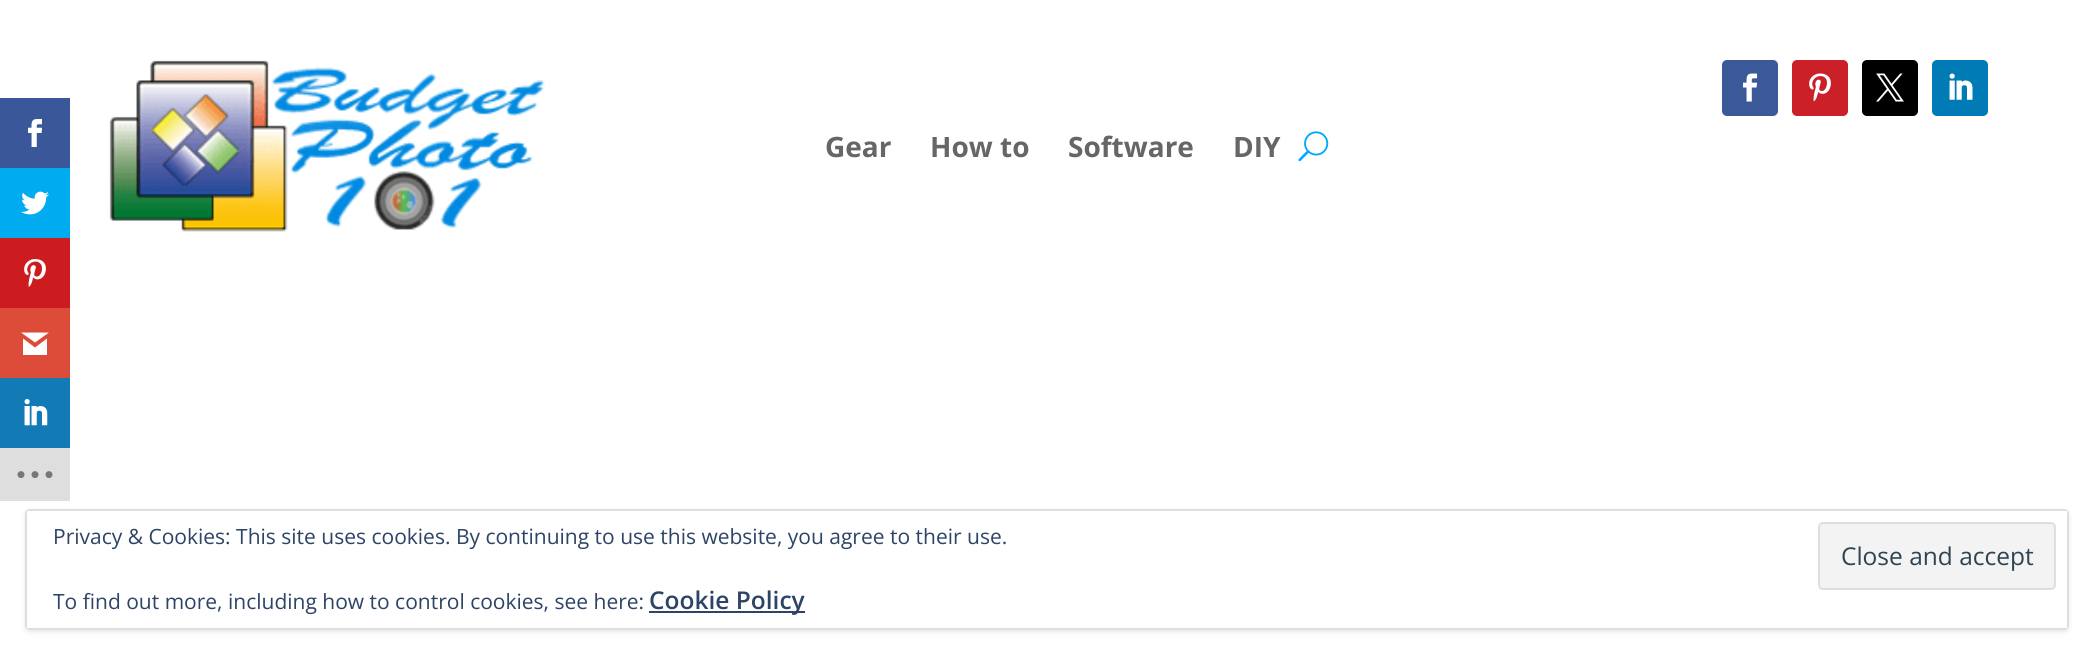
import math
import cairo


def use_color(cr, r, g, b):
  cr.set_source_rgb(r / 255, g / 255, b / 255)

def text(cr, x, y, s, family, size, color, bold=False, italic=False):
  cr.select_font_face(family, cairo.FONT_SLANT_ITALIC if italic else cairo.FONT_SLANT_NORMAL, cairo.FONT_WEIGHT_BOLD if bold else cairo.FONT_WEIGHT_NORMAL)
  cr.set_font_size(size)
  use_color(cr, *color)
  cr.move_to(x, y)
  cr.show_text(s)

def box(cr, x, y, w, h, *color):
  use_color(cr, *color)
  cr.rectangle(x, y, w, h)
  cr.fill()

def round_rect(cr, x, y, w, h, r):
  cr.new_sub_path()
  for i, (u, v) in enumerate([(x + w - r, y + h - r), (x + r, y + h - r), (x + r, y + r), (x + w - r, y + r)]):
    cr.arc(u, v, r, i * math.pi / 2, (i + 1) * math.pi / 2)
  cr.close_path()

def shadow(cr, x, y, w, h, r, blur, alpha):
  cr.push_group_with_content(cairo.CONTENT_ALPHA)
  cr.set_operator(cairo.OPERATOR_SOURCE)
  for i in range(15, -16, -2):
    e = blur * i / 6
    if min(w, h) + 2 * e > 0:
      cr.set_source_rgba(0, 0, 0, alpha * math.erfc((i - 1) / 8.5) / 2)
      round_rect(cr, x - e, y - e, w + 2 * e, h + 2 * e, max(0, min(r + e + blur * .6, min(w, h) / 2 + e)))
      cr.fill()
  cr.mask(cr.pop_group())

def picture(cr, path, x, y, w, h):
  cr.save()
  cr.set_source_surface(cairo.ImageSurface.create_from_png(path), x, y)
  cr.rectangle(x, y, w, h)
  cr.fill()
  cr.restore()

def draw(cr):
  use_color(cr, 255, 255, 255)
  cr.paint()
  box(cr, 0, 98, 70, 70, 58, 87, 154)
  picture(cr, "img_01.png", 28, 119, 14, 28)
  box(cr, 0, 168, 70, 70, 0, 171, 240)
  picture(cr, "img_02.png", 21, 191, 28, 24)
  box(cr, 0, 238, 70, 70, 205, 28, 31)
  picture(cr, "img_03.png", 24, 259, 22, 28)
  box(cr, 0, 308, 70, 70, 221, 75, 57)
  use_color(cr, 255, 255, 255)
  cr.new_path()
  cr.move_to(49, 332.5)
  cr.line_to(21, 332.5)
  cr.line_to(35, 342.5)
  cr.close_path()
  cr.move_to(35, 347.5)
  cr.line_to(23, 338.5)
  cr.line_to(23, 355)
  cr.line_to(47, 355)
  cr.line_to(47, 338.5)
  cr.close_path()
  cr.fill()
  box(cr, 0, 378, 70, 70, 18, 123, 182)
  picture(cr, "img_04.png", 24, 399, 24, 27)
  box(cr, 0, 448, 70, 53, 222, 222, 222)
  picture(cr, "img_05.png", 17, 471, 36, 7)
  use_color(cr, 59, 89, 152)
  round_rect(cr, 1722, 60, 56, 56, 5)
  cr.fill()
  picture(cr, "img_06.png", 1743, 73, 15, 29)
  use_color(cr, 203, 32, 39)
  round_rect(cr, 1792, 60, 56, 56, 5)
  cr.fill()
  picture(cr, "img_07.png", 1809, 73, 22, 29)
  use_color(cr, 0, 0, 0)
  round_rect(cr, 1862, 60, 56, 56, 5)
  cr.fill()
  picture(cr, "img_08.png", 1876, 73, 28, 29)
  use_color(cr, 0, 123, 182)
  round_rect(cr, 1932, 60, 56, 56, 5)
  cr.fill()
  picture(cr, "img_09.png", 1949, 73, 24, 27)
  picture(cr, "img_10.png", 109, 60, 436, 172)
  picture(cr, "img_11.png", 1298, 131, 31, 31)
  use_color(cr, 0, 0, 0)
  shadow(cr, 25, 511, 2044, 121, 5, 2.5, 0.1)
  use_color(cr, 255, 255, 255)
  round_rect(cr, 25, 509, 2044, 121, 5)
  cr.fill()
  use_color(cr, 222, 222, 222)
  cr.set_fill_rule(cairo.FILL_RULE_EVEN_ODD)
  cr.new_path()
  cr.move_to(30, 509)
  cr.curve_to(27, 509, 25, 511, 25, 514)
  cr.line_to(25, 625)
  cr.curve_to(25, 628, 27, 630, 30, 630)
  cr.line_to(2064, 630)
  cr.curve_to(2067, 630, 2069, 628, 2069, 625)
  cr.line_to(2069, 514)
  cr.curve_to(2069, 511, 2067, 509, 2064, 509)
  cr.close_path()
  cr.move_to(27, 511)
  cr.line_to(27, 628)
  cr.line_to(2067, 628)
  cr.line_to(2067, 511)
  cr.close_path()
  cr.fill()
  use_color(cr, 243, 243, 243)
  round_rect(cr, 1819, 523, 236, 66, 4)
  cr.fill_preserve()
  use_color(cr, 222, 222, 222)
  cr.stroke()
  box(cr, 649, 611, 156, 2, 46, 68, 103)
  text(cr, 825, 157, "Gear", "Open Sans", 28, (102, 102, 102), bold=True)
  text(cr, 930, 157, "How to", "Open Sans", 28, (102, 102, 102), bold=True)
  text(cr, 1068, 157, "Software", "Open Sans", 28, (102, 102, 102), bold=True)
  text(cr, 1233, 157, "DIY", "Open Sans", 28, (102, 102, 102), bold=True)
  text(cr, 53, 544, "Privacy & Cookies: This site uses cookies. By continuing to use this website, you agree to their use.", "Open Sans", 21, (46, 68, 103))
  text(cr, 1841, 565, "Close and accept", "Open Sans", 24.5, (46, 68, 83))
  text(cr, 53, 609, "To find out more, including how to control cookies, see here:", "Open Sans", 21, (46, 68, 103))
  text(cr, 649, 609, "Cookie Policy", "Open Sans SemiBold", 24.5, (46, 68, 103))


surface = cairo.ImageSurface(cairo.FORMAT_RGB24, 2092, 654)
cr = cairo.Context(surface)
options = cairo.FontOptions()
options.set_hint_metrics(cairo.HINT_METRICS_OFF)
options.set_hint_style(cairo.HINT_STYLE_NONE)
cr.set_font_options(options)
cr.set_miter_limit(4)
draw(cr)
surface.write_to_png("out.png")
